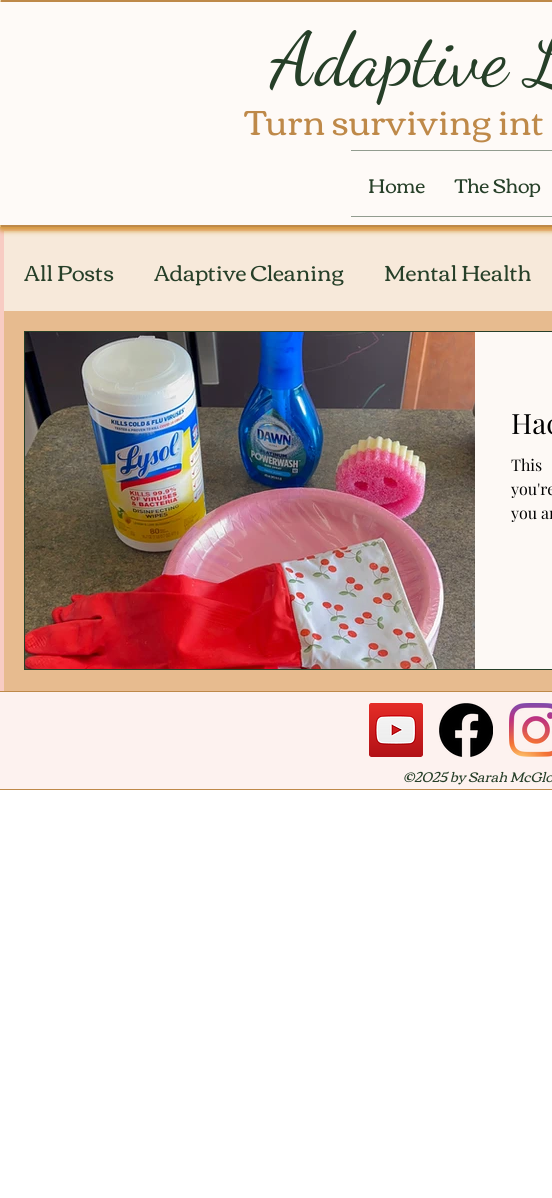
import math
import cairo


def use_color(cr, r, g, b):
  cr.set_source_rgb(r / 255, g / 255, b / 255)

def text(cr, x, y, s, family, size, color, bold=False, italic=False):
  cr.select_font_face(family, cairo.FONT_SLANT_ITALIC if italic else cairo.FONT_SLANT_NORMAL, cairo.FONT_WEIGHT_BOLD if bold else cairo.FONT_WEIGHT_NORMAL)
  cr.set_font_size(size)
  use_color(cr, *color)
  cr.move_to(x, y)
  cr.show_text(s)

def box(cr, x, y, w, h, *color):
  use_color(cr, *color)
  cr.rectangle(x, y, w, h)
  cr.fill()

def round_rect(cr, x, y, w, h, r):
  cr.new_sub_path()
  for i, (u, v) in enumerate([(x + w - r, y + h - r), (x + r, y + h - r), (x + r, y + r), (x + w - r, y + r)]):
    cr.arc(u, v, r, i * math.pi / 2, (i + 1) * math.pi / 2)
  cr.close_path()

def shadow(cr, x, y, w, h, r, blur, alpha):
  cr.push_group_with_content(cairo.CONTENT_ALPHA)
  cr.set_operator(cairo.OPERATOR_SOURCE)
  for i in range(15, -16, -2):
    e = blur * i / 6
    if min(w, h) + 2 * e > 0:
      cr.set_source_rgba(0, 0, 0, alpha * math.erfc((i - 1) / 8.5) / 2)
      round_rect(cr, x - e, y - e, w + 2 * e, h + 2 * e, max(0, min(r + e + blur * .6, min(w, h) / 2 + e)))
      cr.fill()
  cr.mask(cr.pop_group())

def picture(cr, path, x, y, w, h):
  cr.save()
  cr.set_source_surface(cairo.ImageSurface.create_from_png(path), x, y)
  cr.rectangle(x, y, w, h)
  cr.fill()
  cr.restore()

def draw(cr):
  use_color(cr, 255, 255, 255)
  cr.paint()
  box(cr, 0, 227, 552, 464, 248, 204, 195)
  box(cr, 4, 231, 548, 80, 247, 233, 218)
  use_color(cr, 197, 128, 0)
  shadow(cr, -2, 0, 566, 231, 4, 2.5, 0.7)
  box(cr, 1, 0, 551, 2, 190, 137, 73)
  box(cr, 1, 225, 551, 2, 190, 137, 73)
  box(cr, 0, 2, 552, 223, 254, 250, 247)
  box(cr, 351, 150, 201, 1, 146, 156, 143)
  box(cr, 351, 216, 201, 1, 146, 156, 143)
  box(cr, 4, 311, 548, 380, 231, 187, 143)
  cr.rectangle(24.5, 331.5, 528, 338)
  use_color(cr, 38, 63, 40)
  cr.set_line_width(1)
  cr.stroke()
  picture(cr, "img_01.png", 25, 332, 450, 337)
  box(cr, 475, 332, 77, 337, 253, 249, 245)
  box(cr, 0, 691, 552, 1, 190, 137, 73)
  box(cr, 0, 789, 552, 1, 190, 137, 73)
  box(cr, 0, 692, 552, 97, 253, 242, 239)
  picture(cr, "img_02.png", 369, 703, 54, 54)
  picture(cr, "img_03.png", 439, 703, 54, 54)
  picture(cr, "img_04.png", 509, 703, 43, 54)
  text(cr, 271, 84, "Adaptive L", "Dancing Script", 75, (38, 63, 40))
  text(cr, 245, 135, "Turn surviving int", "Corben", 35, (190, 137, 73))
  text(cr, 368, 193, "Home", "Corben", 20, (38, 63, 40))
  text(cr, 455, 193, "The Shop", "Corben", 20, (38, 63, 40))
  text(cr, 24, 281, "All Posts", "Corben", 22, (38, 63, 40))
  text(cr, 154, 281, "Adaptive Cleaning", "Corben", 22, (38, 63, 40))
  text(cr, 384, 281, "Mental Health", "Corben", 22, (38, 63, 40))
  text(cr, 511, 434, "Hac", "Playfair Display", 28, (0, 0, 0))
  text(cr, 511, 471, "This", "Playfair Display", 16, (0, 0, 0))
  text(cr, 511, 495, "you're", "Playfair Display", 16, (0, 0, 0))
  text(cr, 511, 519, "you ar", "Playfair Display", 16, (0, 0, 0))
  text(cr, 403, 782, "©2025 by Sarah McGlo", "Corben", 14, (38, 63, 40), italic=True)


surface = cairo.ImageSurface(cairo.FORMAT_RGB24, 552, 1198)
cr = cairo.Context(surface)
options = cairo.FontOptions()
options.set_hint_metrics(cairo.HINT_METRICS_OFF)
options.set_hint_style(cairo.HINT_STYLE_NONE)
cr.set_font_options(options)
cr.set_miter_limit(4)
draw(cr)
surface.write_to_png("out.png")
